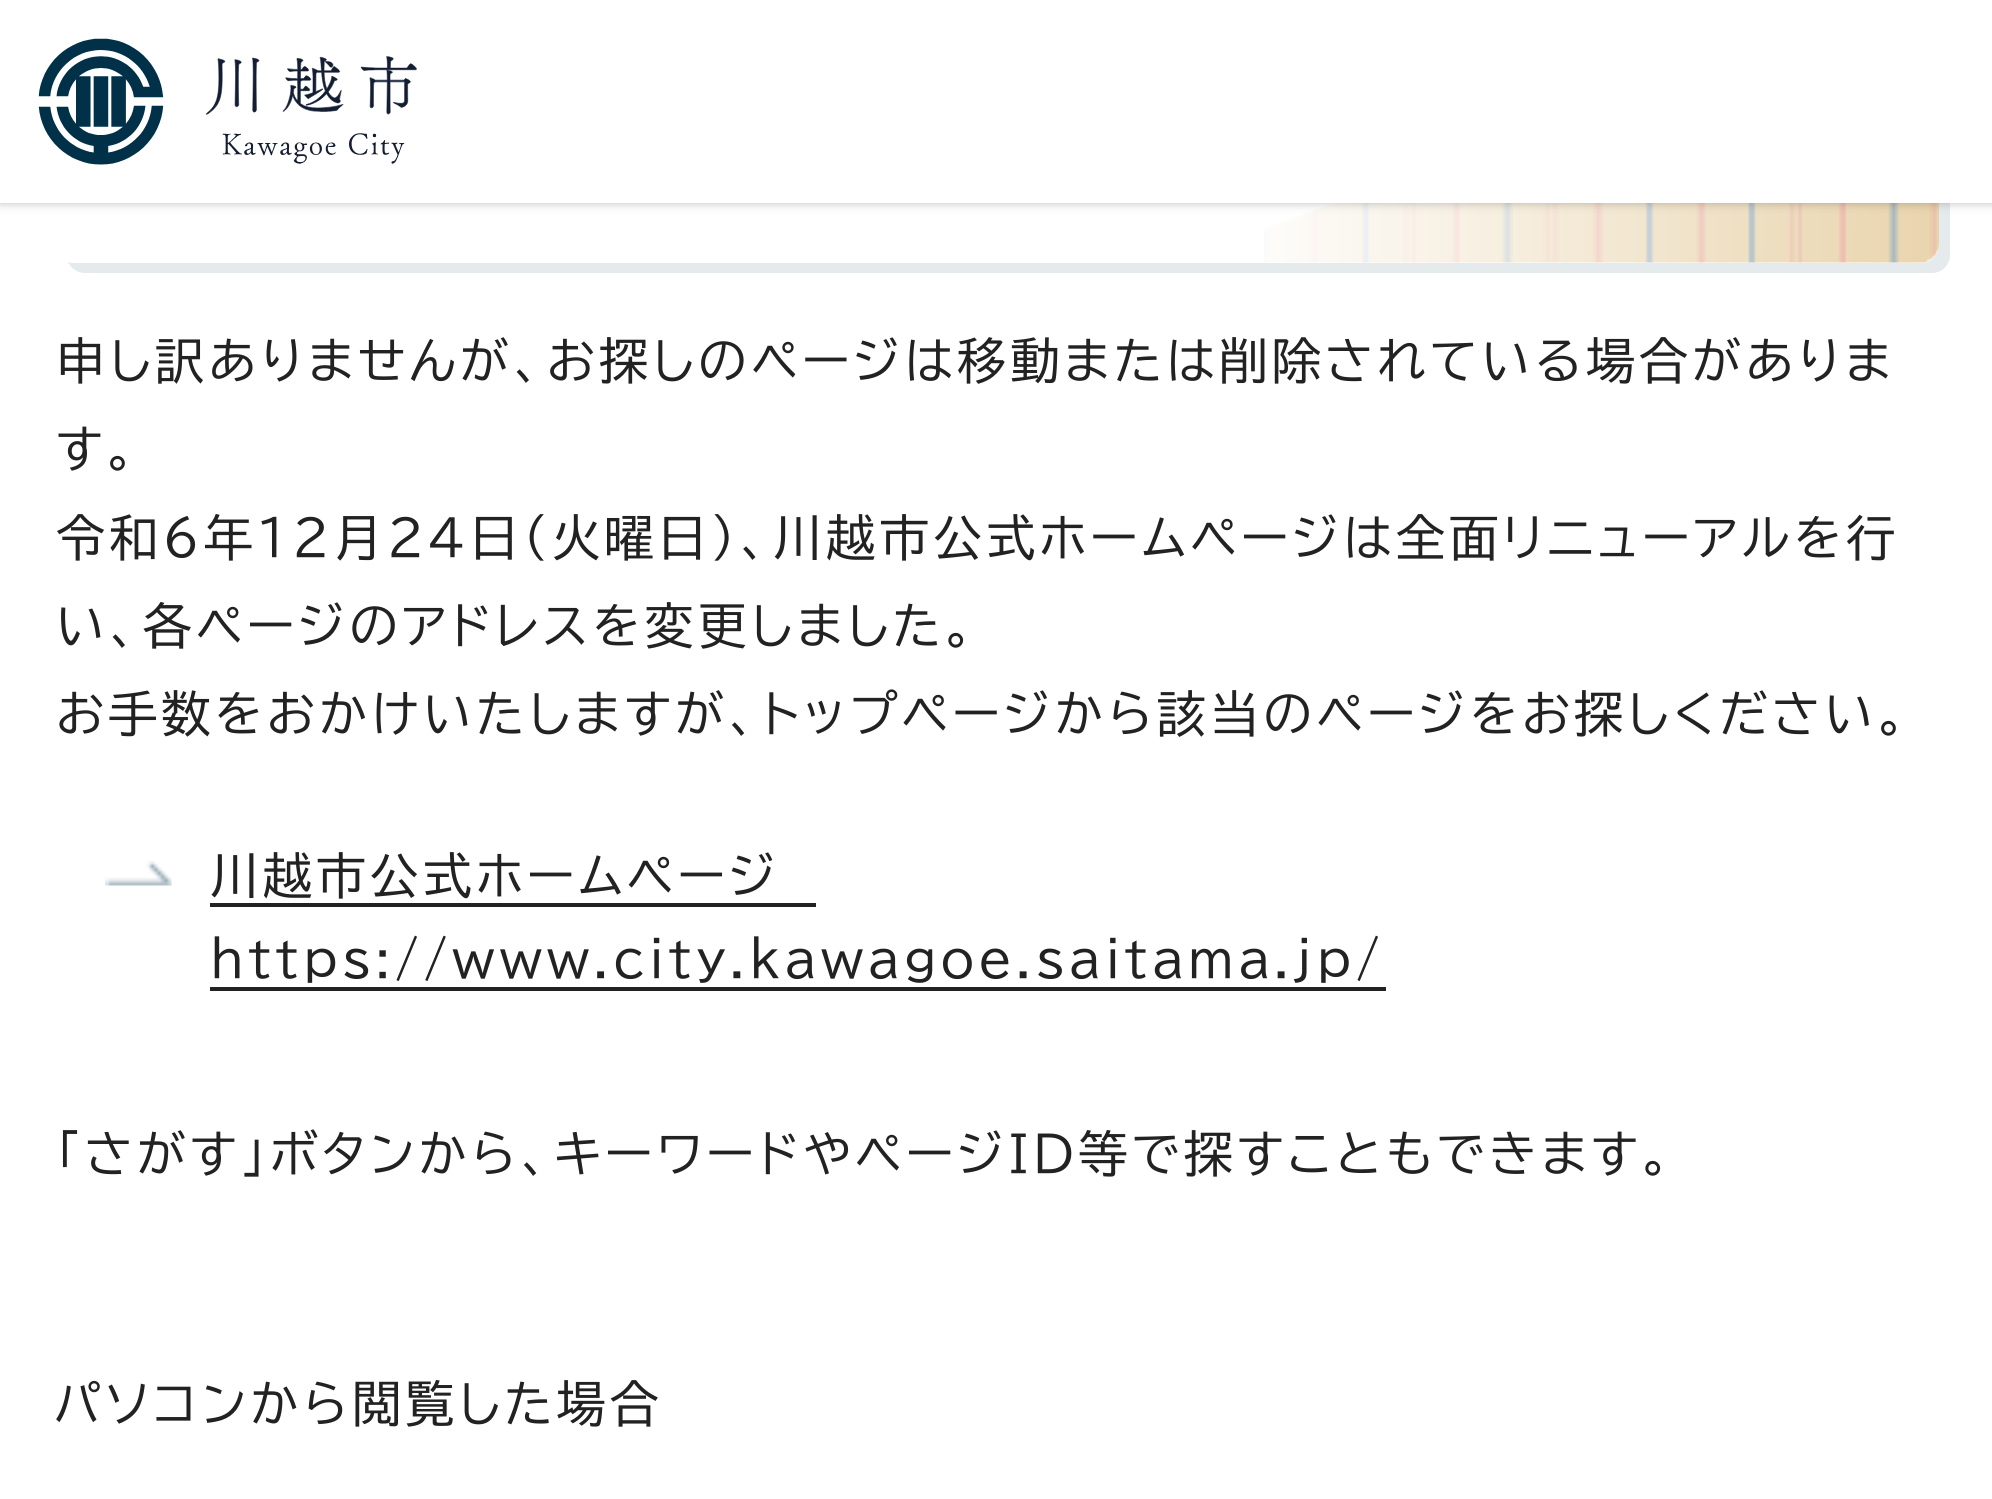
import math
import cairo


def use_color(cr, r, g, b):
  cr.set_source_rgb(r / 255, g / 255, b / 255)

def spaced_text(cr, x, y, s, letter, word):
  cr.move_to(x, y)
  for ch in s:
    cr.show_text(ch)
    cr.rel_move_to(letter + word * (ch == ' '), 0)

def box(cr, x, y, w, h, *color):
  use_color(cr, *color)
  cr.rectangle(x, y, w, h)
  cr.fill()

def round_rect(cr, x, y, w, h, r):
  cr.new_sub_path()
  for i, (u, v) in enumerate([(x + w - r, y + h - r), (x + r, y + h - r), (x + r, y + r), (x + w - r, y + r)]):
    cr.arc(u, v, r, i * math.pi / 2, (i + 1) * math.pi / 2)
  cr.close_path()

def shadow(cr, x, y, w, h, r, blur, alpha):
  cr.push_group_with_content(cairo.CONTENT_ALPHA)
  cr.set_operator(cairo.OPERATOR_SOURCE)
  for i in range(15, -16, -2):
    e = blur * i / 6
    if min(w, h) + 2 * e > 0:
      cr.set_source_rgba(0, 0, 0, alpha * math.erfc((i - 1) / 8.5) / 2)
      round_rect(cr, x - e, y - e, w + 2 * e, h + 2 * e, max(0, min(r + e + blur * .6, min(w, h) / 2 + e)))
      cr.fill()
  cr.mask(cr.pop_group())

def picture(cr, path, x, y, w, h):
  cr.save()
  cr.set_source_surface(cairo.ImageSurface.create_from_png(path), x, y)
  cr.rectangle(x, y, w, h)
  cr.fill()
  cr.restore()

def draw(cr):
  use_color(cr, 255, 255, 255)
  cr.paint()
  use_color(cr, 229, 234, 237)
  cr.new_path()
  cr.move_to(68, 262)
  cr.curve_to(71, 268, 77, 273, 85, 273)
  cr.line_to(1932, 273)
  cr.curve_to(1942, 273, 1950, 265, 1950, 255)
  cr.line_to(1950, -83)
  cr.curve_to(1950, -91, 1945, -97, 1938, -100)
  cr.line_to(1939, -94)
  cr.line_to(1939, 245)
  cr.curve_to(1939, 255, 1931, 262, 1922, 262)
  cr.line_to(74, 262)
  cr.close_path()
  cr.fill()
  use_color(cr, 255, 255, 255)
  round_rect(cr, 56, -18, 1883, 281, 18)
  cr.fill()
  picture(cr, "img_02.png", 1264, 203, 675, 60)
  use_color(cr, 0, 0, 0)
  shadow(cr, 0, 0, 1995, 203, 0, 5, 0.26)
  box(cr, 0, 0, 1992, 203, 255, 255, 255)
  picture(cr, "img_01.png", 38, 38, 379, 127)
  picture(cr, "img_03.png", 105, 861, 67, 25)
  box(cr, 210, 903, 606, 4, 34, 34, 34)
  box(cr, 210, 987, 1176, 4, 34, 34, 34)
  cr.select_font_face("BIZ UDPGothic")
  cr.set_font_size(49)
  spaced_text(cr, 56, 379, "申し訳ありませんが、お探しのページは移動または削除されている場合がありま", 4.2, 0)
  spaced_text(cr, 56, 467, "す。", 4.2, 0)
  spaced_text(cr, 56, 556, "令和6年12月24日（火曜日）、川越市公式ホームページは全面リニューアルを行", 4.2, 0)
  spaced_text(cr, 56, 644, "い、各ページのアドレスを変更しました。", 4.2, 0)
  spaced_text(cr, 56, 732, "お手数をおかけいたしますが、トップページから該当のページをお探しください。", 4.2, 0)
  spaced_text(cr, 210, 894, "川越市公式ホームページ", 4.2, 0)
  spaced_text(cr, 210, 977, "https://www.city.kawagoe.saitama.jp/", 4.2, 0)
  spaced_text(cr, 56, 1172, "「さがす」ボタンから、キーワードやページID等で探すこともできます。", 4.2, 0)
  spaced_text(cr, 53, 1422, "パソコンから閲覧した場合", 4.2, 0)


surface = cairo.ImageSurface(cairo.FORMAT_RGB24, 1992, 1499)
cr = cairo.Context(surface)
options = cairo.FontOptions()
options.set_hint_metrics(cairo.HINT_METRICS_OFF)
options.set_hint_style(cairo.HINT_STYLE_NONE)
cr.set_font_options(options)
cr.set_miter_limit(4)
draw(cr)
surface.write_to_png("out.png")
